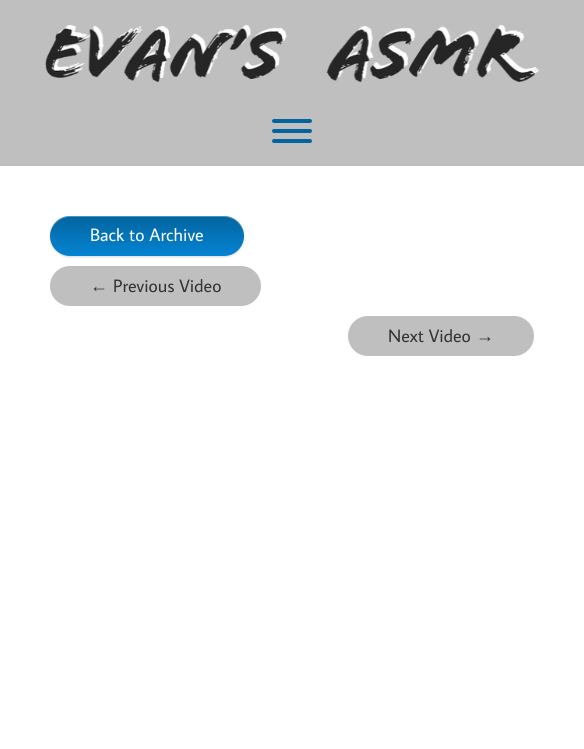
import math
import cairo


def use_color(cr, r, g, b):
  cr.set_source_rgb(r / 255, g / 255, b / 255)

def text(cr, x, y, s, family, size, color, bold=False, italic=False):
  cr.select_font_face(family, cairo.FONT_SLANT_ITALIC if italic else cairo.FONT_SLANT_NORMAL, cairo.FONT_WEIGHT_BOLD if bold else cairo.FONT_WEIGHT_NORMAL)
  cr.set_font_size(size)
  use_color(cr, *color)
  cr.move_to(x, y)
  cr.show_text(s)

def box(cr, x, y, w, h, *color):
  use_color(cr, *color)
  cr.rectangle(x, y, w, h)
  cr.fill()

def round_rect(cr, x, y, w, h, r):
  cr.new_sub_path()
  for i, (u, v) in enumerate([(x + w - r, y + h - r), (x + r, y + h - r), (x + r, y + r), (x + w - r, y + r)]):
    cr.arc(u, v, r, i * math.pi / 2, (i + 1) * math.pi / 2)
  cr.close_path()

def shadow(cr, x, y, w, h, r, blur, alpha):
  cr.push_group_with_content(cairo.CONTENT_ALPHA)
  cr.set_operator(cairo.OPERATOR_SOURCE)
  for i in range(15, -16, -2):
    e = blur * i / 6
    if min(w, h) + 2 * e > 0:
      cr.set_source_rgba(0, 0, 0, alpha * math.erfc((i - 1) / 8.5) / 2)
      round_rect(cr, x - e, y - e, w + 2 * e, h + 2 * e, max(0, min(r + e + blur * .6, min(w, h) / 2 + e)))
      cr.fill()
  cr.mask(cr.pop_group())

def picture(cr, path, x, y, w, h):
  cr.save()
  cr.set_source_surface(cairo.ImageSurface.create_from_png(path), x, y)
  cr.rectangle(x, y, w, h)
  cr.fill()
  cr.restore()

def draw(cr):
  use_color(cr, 255, 255, 255)
  cr.paint()
  box(cr, 0, 0, 584, 166, 191, 191, 191)
  picture(cr, "img_01.png", 45, 25, 494, 57)
  use_color(cr, 3, 100, 159)
  round_rect(cr, 272, 139, 40, 4, 2)
  cr.fill()
  round_rect(cr, 272, 119, 40, 4, 2)
  cr.fill()
  round_rect(cr, 272, 129, 40, 4, 2)
  cr.fill()
  use_color(cr, 0, 0, 0)
  shadow(cr, 50, 217, 194, 40, 20, 1, 0.15)
  gradient = cairo.LinearGradient(147, 216, 147, 256)
  gradient.add_color_stop_rgba(0, 0.012, 0.392, 0.624, 1)
  gradient.add_color_stop_rgba(1, 0.016, 0.518, 0.824, 1)
  cr.set_source(gradient)
  round_rect(cr, 50, 216, 194, 40, 20)
  cr.fill()
  cr.set_source_rgba(1, 1, 1, 0.3)
  cr.new_path()
  cr.move_to(70, 217)
  cr.line_to(224, 217)
  cr.curve_to(235, 217, 244, 226, 244, 237)
  cr.line_to(244, 236)
  cr.curve_to(244, 225, 235, 216, 224, 216)
  cr.line_to(70, 216)
  cr.curve_to(59, 216, 50, 225, 50, 236)
  cr.line_to(50, 237)
  cr.curve_to(50, 226, 59, 217, 70, 217)
  cr.close_path()
  cr.fill()
  use_color(cr, 191, 191, 191)
  round_rect(cr, 50, 266, 211, 40, 20)
  cr.fill()
  round_rect(cr, 348, 316, 186, 40, 20)
  cr.fill()
  text(cr, 90, 241, "Back to Archive", "Average Sans", 18, (255, 255, 255))
  text(cr, 90, 292, "←", "Liberation Serif", 18, (51, 51, 51), bold=True)
  text(cr, 113, 292, "Previous Video", "Average Sans", 18, (51, 51, 51))
  text(cr, 388, 342, "Next Video", "Average Sans", 18, (51, 51, 51))
  text(cr, 476, 342, "→", "Liberation Serif", 18, (51, 51, 51), bold=True)


surface = cairo.ImageSurface(cairo.FORMAT_RGB24, 584, 749)
cr = cairo.Context(surface)
options = cairo.FontOptions()
options.set_hint_metrics(cairo.HINT_METRICS_OFF)
options.set_hint_style(cairo.HINT_STYLE_NONE)
cr.set_font_options(options)
cr.set_miter_limit(4)
draw(cr)
surface.write_to_png("out.png")
